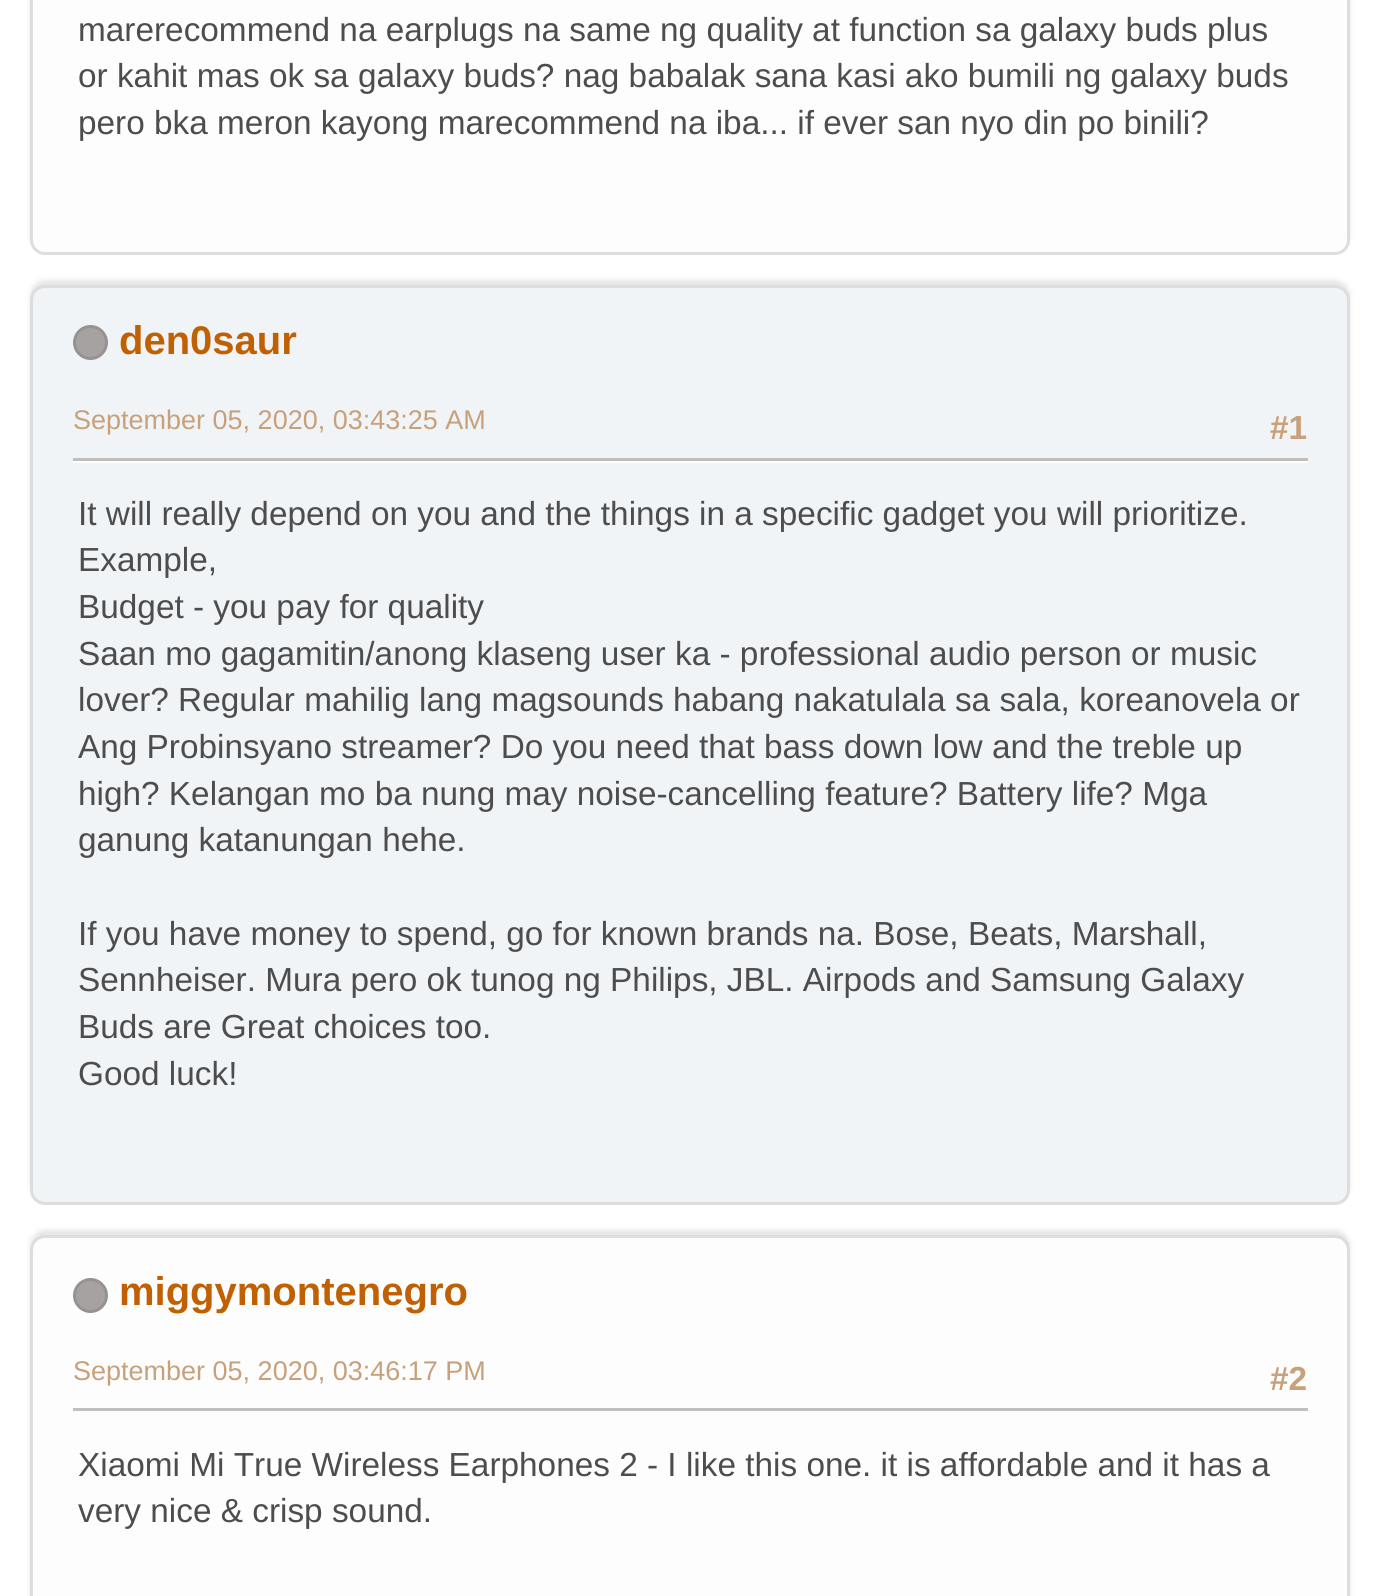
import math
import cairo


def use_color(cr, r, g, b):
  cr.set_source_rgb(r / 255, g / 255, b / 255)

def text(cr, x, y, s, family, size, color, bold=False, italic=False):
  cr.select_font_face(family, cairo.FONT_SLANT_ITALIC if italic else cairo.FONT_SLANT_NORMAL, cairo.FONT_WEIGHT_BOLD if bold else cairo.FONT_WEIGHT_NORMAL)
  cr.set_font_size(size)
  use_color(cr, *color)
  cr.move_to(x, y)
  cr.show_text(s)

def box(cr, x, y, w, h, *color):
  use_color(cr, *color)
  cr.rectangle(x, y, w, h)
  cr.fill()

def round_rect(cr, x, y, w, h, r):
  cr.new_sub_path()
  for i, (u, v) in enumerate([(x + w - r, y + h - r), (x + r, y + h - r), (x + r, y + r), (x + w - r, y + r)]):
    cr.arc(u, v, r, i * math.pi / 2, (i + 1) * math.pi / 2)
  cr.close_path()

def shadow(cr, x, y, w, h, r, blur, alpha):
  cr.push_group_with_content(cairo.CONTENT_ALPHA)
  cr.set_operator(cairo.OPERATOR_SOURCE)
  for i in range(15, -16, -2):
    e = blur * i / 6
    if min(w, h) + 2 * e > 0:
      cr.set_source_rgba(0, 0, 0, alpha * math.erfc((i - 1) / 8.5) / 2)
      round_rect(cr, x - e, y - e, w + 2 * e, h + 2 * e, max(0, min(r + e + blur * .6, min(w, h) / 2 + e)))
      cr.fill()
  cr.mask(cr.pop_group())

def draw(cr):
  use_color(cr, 255, 255, 255)
  cr.paint()
  use_color(cr, 0, 0, 0)
  shadow(cr, 30, -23, 1320, 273, 15, 2.5, 0.1)
  use_color(cr, 253, 253, 253)
  round_rect(cr, 31.5, -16.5, 1317, 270, 13.5)
  cr.fill_preserve()
  use_color(cr, 221, 221, 221)
  cr.set_line_width(3)
  cr.stroke()
  use_color(cr, 0, 0, 0)
  shadow(cr, 30, 280, 1320, 920, 15, 2.5, 0.1)
  use_color(cr, 240, 244, 247)
  round_rect(cr, 31.5, 286.5, 1317, 917, 13.5)
  cr.fill_preserve()
  use_color(cr, 221, 221, 221)
  cr.stroke()
  use_color(cr, 167, 162, 162)
  cr.arc(90.5, 342.5, 16, 0, 2 * math.pi)
  cr.fill_preserve()
  use_color(cr, 150, 146, 146)
  cr.stroke()
  box(cr, 73, 461, 1235, 2, 255, 255, 255)
  box(cr, 73, 458, 1235, 3, 191, 191, 191)
  use_color(cr, 0, 0, 0)
  shadow(cr, 30, 1230, 1320, 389, 15, 2.5, 0.1)
  use_color(cr, 253, 253, 253)
  round_rect(cr, 31.5, 1236.5, 1317, 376, 13.5)
  cr.fill_preserve()
  use_color(cr, 221, 221, 221)
  cr.stroke()
  use_color(cr, 167, 162, 162)
  cr.arc(90.5, 1295.5, 16, 0, 2 * math.pi)
  cr.fill_preserve()
  use_color(cr, 150, 146, 146)
  cr.stroke()
  box(cr, 73, 1408, 1235, 3, 191, 191, 191)
  text(cr, 78, 41, "marerecommend na earplugs na same ng quality at function sa galaxy buds plus", "Liberation Sans", 33.35, (77, 77, 77))
  text(cr, 78, 87, "or kahit mas ok sa galaxy buds? nag babalak sana kasi ako bumili ng galaxy buds", "Liberation Sans", 33.35, (77, 77, 77))
  text(cr, 78, 134, "pero bka meron kayong marecommend na iba... if ever san nyo din po binili?", "Liberation Sans", 33.35, (77, 77, 77))
  text(cr, 119, 354, "den0saur", "Liberation Sans", 40, (192, 96, 2), bold=True)
  text(cr, 73, 429, "September 05, 2020, 03:43:25 AM", "Liberation Sans", 27, (200, 160, 121))
  text(cr, 1270, 439, "#1", "Liberation Sans", 33.35, (200, 160, 121), bold=True)
  text(cr, 78, 525, "It will really depend on you and the things in a specific gadget you will prioritize.", "Liberation Sans", 33.35, (77, 77, 77))
  text(cr, 78, 571, "Example,", "Liberation Sans", 33.35, (77, 77, 77))
  text(cr, 78, 618, "Budget - you pay for quality", "Liberation Sans", 33.35, (77, 77, 77))
  text(cr, 78, 665, "Saan mo gagamitin/anong klaseng user ka - professional audio person or music", "Liberation Sans", 33.35, (77, 77, 77))
  text(cr, 78, 711, "lover? Regular mahilig lang magsounds habang nakatulala sa sala, koreanovela or", "Liberation Sans", 33.35, (77, 77, 77))
  text(cr, 78, 758, "Ang Probinsyano streamer? Do you need that bass down low and the treble up", "Liberation Sans", 33.35, (77, 77, 77))
  text(cr, 78, 805, "high? Kelangan mo ba nung may noise-cancelling feature? Battery life? Mga", "Liberation Sans", 33.35, (77, 77, 77))
  text(cr, 78, 851, "ganung katanungan hehe.", "Liberation Sans", 33.35, (77, 77, 77))
  text(cr, 78, 945, "If you have money to spend, go for known brands na. Bose, Beats, Marshall,", "Liberation Sans", 33.35, (77, 77, 77))
  text(cr, 78, 991, "Sennheiser. Mura pero ok tunog ng Philips, JBL. Airpods and Samsung Galaxy", "Liberation Sans", 33.35, (77, 77, 77))
  text(cr, 78, 1038, "Buds are Great choices too.", "Liberation Sans", 33.35, (77, 77, 77))
  text(cr, 78, 1085, "Good luck!", "Liberation Sans", 33.35, (77, 77, 77))
  text(cr, 119, 1305, "miggymontenegro", "Liberation Sans", 40, (192, 96, 2), bold=True)
  text(cr, 73, 1380, "September 05, 2020, 03:46:17 PM", "Liberation Sans", 27, (200, 160, 121))
  text(cr, 1270, 1390, "#2", "Liberation Sans", 33.35, (200, 160, 121), bold=True)
  text(cr, 78, 1476, "Xiaomi Mi True Wireless Earphones 2 - I like this one. it is affordable and it has a", "Liberation Sans", 33.35, (77, 77, 77))
  text(cr, 78, 1522, "very nice & crisp sound.", "Liberation Sans", 33.35, (77, 77, 77))


surface = cairo.ImageSurface(cairo.FORMAT_RGB24, 1380, 1596)
cr = cairo.Context(surface)
options = cairo.FontOptions()
options.set_hint_metrics(cairo.HINT_METRICS_OFF)
options.set_hint_style(cairo.HINT_STYLE_NONE)
cr.set_font_options(options)
cr.set_miter_limit(4)
draw(cr)
surface.write_to_png("out.png")
